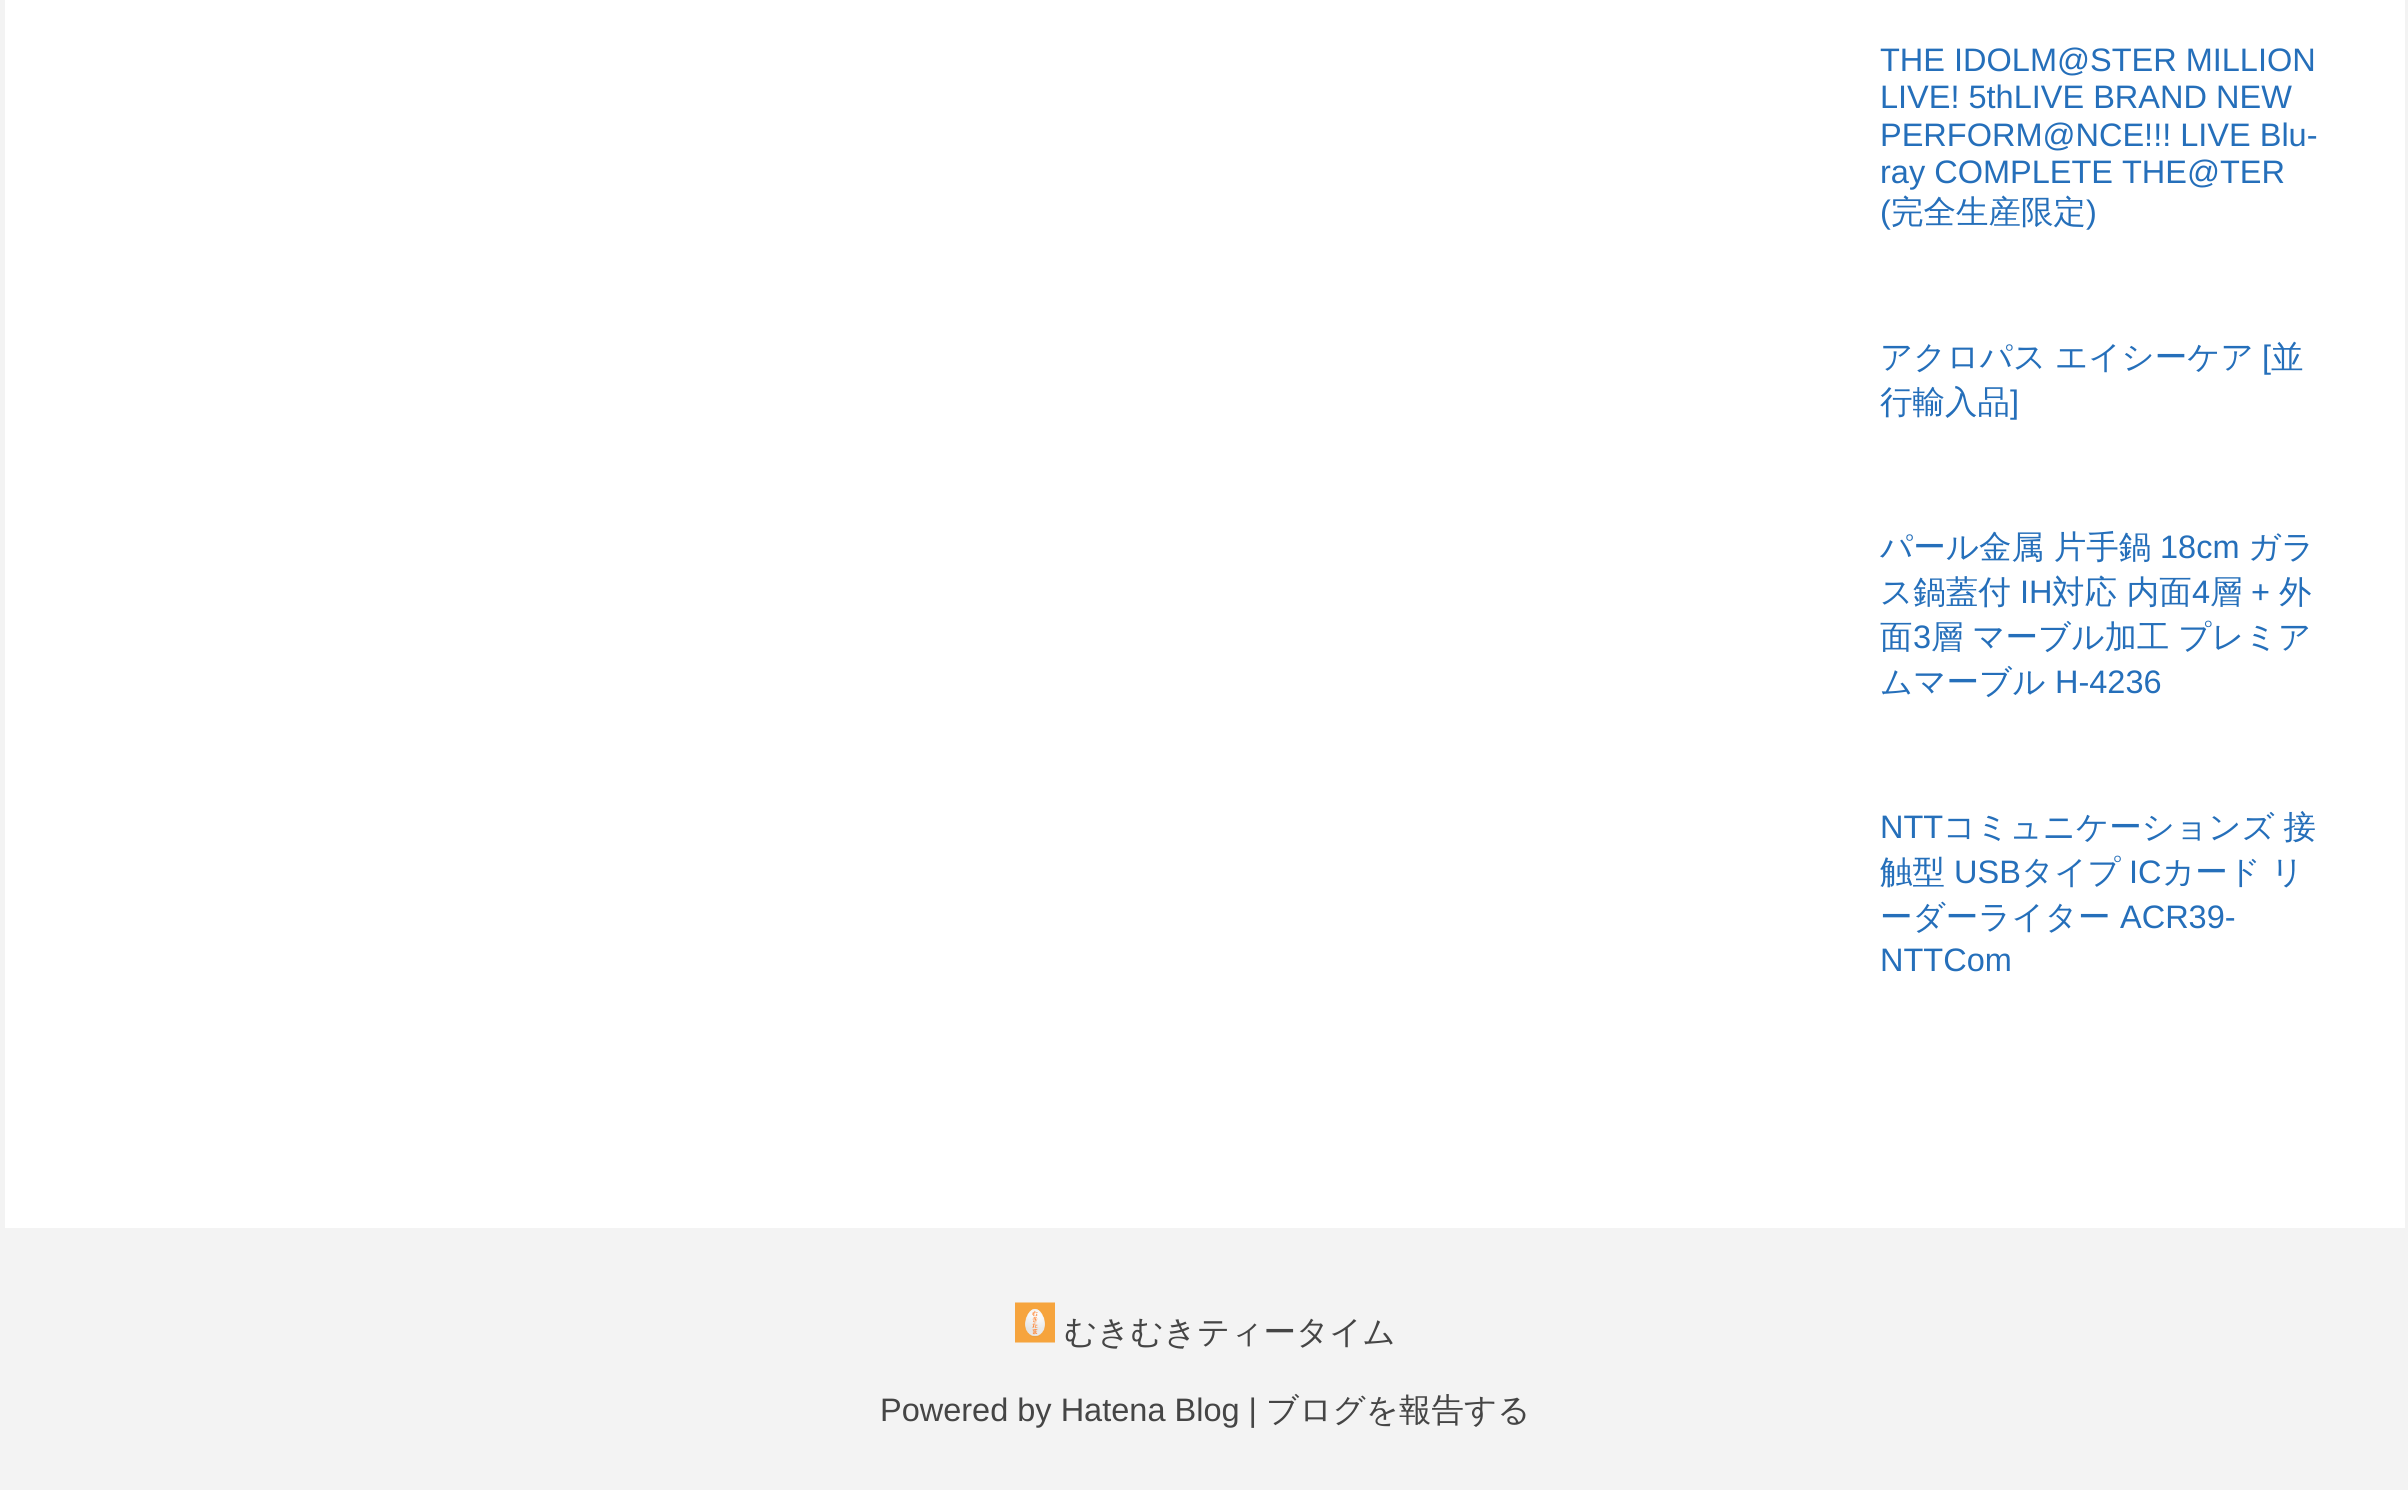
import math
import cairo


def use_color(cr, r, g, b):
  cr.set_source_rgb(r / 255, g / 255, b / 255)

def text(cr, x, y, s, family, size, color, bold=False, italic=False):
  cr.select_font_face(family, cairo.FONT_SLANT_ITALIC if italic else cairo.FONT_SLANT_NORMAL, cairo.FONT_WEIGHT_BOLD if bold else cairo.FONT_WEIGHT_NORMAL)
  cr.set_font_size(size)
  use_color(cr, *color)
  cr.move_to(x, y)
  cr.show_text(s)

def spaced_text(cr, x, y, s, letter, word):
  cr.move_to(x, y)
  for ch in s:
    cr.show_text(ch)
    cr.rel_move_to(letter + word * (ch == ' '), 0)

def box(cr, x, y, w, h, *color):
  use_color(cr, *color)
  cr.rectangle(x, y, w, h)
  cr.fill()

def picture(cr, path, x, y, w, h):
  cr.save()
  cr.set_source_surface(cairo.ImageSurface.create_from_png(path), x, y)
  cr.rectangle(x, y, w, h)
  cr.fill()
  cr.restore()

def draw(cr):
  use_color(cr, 243, 243, 243)
  cr.paint()
  box(cr, 5, 0, 2400, 1228, 255, 255, 255)
  picture(cr, "img_01.png", 1015, 1302, 40, 41)
  text(cr, 1880, 71, "THE IDOLM@STER MILLION", "Liberation Sans", 32.5, (37, 111, 186))
  text(cr, 1880, 108, "LIVE! 5thLIVE BRAND NEW", "Liberation Sans", 32.5, (37, 111, 186))
  text(cr, 1880, 146, "PERFORM@NCE!!! LIVE Blu-", "Liberation Sans", 32.5, (37, 111, 186))
  text(cr, 1880, 183, "ray COMPLETE THE@TER", "Liberation Sans", 32.5, (37, 111, 186))
  text(cr, 1880, 223, "(", "Liberation Sans", 32.5, (37, 111, 186))
  text(cr, 1891, 223, "完全生産限定", "WenQuanYi Zen Hei Medium", 32.5, (37, 111, 186))
  text(cr, 2086, 223, ")", "Liberation Sans", 32.5, (37, 111, 186))
  cr.select_font_face("WenQuanYi Zen Hei Medium")
  spaced_text(cr, 1880, 368, "アクロパス エイシーケア", 0, -1)
  text(cr, 2262, 368, "[", "Liberation Sans", 32.5, (37, 111, 186))
  text(cr, 2271, 368, "並", "WenQuanYi Zen Hei Medium", 32.5, (37, 111, 186))
  text(cr, 1880, 413, "行輸入品", "WenQuanYi Zen Hei Medium", 32.5, (37, 111, 186))
  text(cr, 2010, 413, "]", "Liberation Sans", 32.5, (37, 111, 186))
  text(cr, 1880, 558, "パール金属 片手鍋", "WenQuanYi Zen Hei Medium", 32.5, (37, 111, 186))
  text(cr, 2160, 558, "18cm", "Liberation Sans", 32.5, (37, 111, 186))
  text(cr, 2248, 558, "ガラ", "WenQuanYi Zen Hei Medium", 32.5, (37, 111, 186))
  text(cr, 1880, 603, "ス鍋蓋付", "WenQuanYi Zen Hei Medium", 32.5, (37, 111, 186))
  text(cr, 2020, 603, "IH", "Liberation Sans", 32.5, (37, 111, 186))
  text(cr, 2052, 603, "対応 内面", "WenQuanYi Zen Hei Medium", 32.5, (37, 111, 186))
  text(cr, 2192, 603, "4", "Liberation Sans", 32.5, (37, 111, 186))
  text(cr, 2210, 603, "層", "WenQuanYi Zen Hei Medium", 32.5, (37, 111, 186))
  text(cr, 2251, 603, "+", "Liberation Sans", 32.5, (37, 111, 186))
  text(cr, 2279, 603, "外", "WenQuanYi Zen Hei Medium", 32.5, (37, 111, 186))
  text(cr, 1880, 648, "面", "WenQuanYi Zen Hei Medium", 32.5, (37, 111, 186))
  text(cr, 1913, 648, "3", "Liberation Sans", 32.5, (37, 111, 186))
  cr.select_font_face("WenQuanYi Zen Hei Medium")
  spaced_text(cr, 1931, 648, "層 マーブル加工 プレミア", 0, -1)
  text(cr, 1880, 693, "ムマーブル", "WenQuanYi Zen Hei Medium", 32.5, (37, 111, 186))
  text(cr, 2055, 693, "H-4236", "Liberation Sans", 32.5, (37, 111, 186))
  text(cr, 1880, 838, "NTT", "Liberation Sans", 32.5, (37, 111, 186))
  cr.select_font_face("WenQuanYi Zen Hei Medium")
  spaced_text(cr, 1943, 838, "コミュニケーションズ 接", 0, -1)
  text(cr, 1880, 883, "触型", "WenQuanYi Zen Hei Medium", 32.5, (37, 111, 186))
  text(cr, 1954, 883, "USB", "Liberation Sans", 32.5, (37, 111, 186))
  text(cr, 2021, 883, "タイプ", "WenQuanYi Zen Hei Medium", 32.5, (37, 111, 186))
  text(cr, 2129, 883, "IC", "Liberation Sans", 32.5, (37, 111, 186))
  text(cr, 2162, 883, "カード リ", "WenQuanYi Zen Hei Medium", 32.5, (37, 111, 186))
  text(cr, 1880, 928, "ーダーライター", "WenQuanYi Zen Hei Medium", 32.5, (37, 111, 186))
  text(cr, 2120, 928, "ACR39-", "Liberation Sans", 32.5, (37, 111, 186))
  text(cr, 1880, 971, "NTTCom", "Liberation Sans", 32.5, (37, 111, 186))
  text(cr, 1064, 1343, "むきむきティータイム", "WenQuanYi Zen Hei Medium", 32.5, (69, 69, 69))
  text(cr, 880, 1421, "Powered by Hatena Blog |", "Liberation Sans", 32.5, (69, 69, 69))
  text(cr, 1266, 1421, "ブログを報告する", "WenQuanYi Zen Hei Medium", 32.5, (69, 69, 69))


surface = cairo.ImageSurface(cairo.FORMAT_RGB24, 2408, 1490)
cr = cairo.Context(surface)
options = cairo.FontOptions()
options.set_hint_metrics(cairo.HINT_METRICS_OFF)
options.set_hint_style(cairo.HINT_STYLE_NONE)
cr.set_font_options(options)
cr.set_miter_limit(4)
draw(cr)
surface.write_to_png("out.png")
